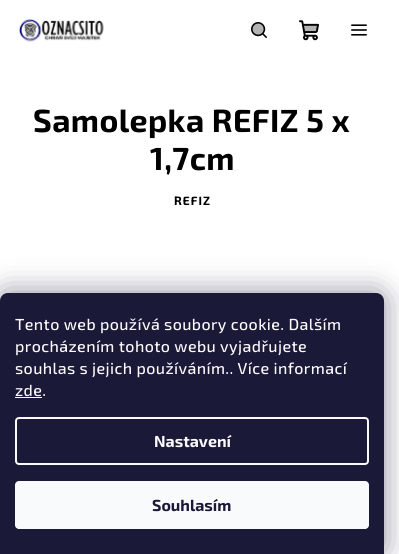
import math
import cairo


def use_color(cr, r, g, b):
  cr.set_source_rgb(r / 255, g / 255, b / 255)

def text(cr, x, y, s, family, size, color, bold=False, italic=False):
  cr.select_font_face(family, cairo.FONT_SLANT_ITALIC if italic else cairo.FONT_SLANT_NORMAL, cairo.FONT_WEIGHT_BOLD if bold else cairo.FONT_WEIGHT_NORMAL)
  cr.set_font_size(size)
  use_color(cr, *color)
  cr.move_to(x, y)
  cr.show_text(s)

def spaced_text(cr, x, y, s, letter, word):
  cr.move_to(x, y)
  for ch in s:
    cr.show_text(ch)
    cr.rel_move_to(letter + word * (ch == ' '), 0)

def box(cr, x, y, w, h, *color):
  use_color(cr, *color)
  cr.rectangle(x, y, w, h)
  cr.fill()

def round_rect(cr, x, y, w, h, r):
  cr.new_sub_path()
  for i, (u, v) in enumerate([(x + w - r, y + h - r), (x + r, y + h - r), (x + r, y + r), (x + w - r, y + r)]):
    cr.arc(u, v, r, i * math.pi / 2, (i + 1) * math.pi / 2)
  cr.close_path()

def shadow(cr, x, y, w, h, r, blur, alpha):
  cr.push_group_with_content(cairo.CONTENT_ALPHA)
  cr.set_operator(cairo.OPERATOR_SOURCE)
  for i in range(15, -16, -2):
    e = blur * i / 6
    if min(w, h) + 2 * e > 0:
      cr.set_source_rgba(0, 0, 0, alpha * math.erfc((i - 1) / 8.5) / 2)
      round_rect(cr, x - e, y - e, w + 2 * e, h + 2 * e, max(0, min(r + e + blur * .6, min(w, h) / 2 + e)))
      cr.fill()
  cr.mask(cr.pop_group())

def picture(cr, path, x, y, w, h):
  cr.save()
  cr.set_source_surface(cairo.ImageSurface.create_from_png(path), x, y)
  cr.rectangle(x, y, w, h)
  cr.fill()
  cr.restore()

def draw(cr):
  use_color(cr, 255, 255, 255)
  cr.paint()
  picture(cr, "img_01.png", 19, 18, 85, 24)
  picture(cr, "img_02.png", 251, 22, 16, 16)
  picture(cr, "img_03.png", 252, 23, 12, 12)
  picture(cr, "img_04.png", 299, 20, 20, 21)
  cr.set_source_rgba(0, 0, 0, 0.3)
  cr.rectangle(304, 25, 13, 7)
  cr.fill()
  picture(cr, "img_05.png", 351, 24, 16, 12)
  use_color(cr, 27, 25, 57)
  shadow(cr, 0, 293, 384, 261, 8, 15, 0.5)
  use_color(cr, 26, 25, 55)
  cr.new_path()
  cr.move_to(8, 293)
  cr.line_to(376, 293)
  cr.curve_to(380.5, 293, 384, 296.5, 384, 301)
  cr.line_to(384, 554)
  cr.line_to(0, 554)
  cr.line_to(0, 301)
  cr.curve_to(0, 296.5, 3.5, 293, 8, 293)
  cr.close_path()
  cr.fill()
  box(cr, 15, 397, 27, 1, 248, 250, 251)
  round_rect(cr, 16, 418, 352, 46, 3)
  cr.stroke()
  round_rect(cr, 15, 481, 354, 48, 4)
  cr.fill()
  cr.select_font_face("Exo 2", cairo.FONT_SLANT_NORMAL, cairo.FONT_WEIGHT_BOLD)
  cr.set_font_size(32)
  use_color(cr, 0, 0, 0)
  spaced_text(cr, 33, 132, "Samolepka REFIZ 5 x", 0.4, 0)
  spaced_text(cr, 150, 170, "1,7cm", 0.4, 0)
  cr.set_font_size(12)
  spaced_text(cr, 174, 205, "REFIZ", 1, 0)
  cr.select_font_face("Exo 2 Medium")
  cr.set_font_size(16)
  use_color(cr, 248, 250, 251)
  spaced_text(cr, 15, 330, "Tento web používá soubory cookie. Dalším", 0.4, 0)
  spaced_text(cr, 15, 352, "procházením tohoto webu vyjadřujete", 0.4, 0)
  spaced_text(cr, 15, 374, "souhlas s jejich používáním.. Více informací", 0.4, 0)
  spaced_text(cr, 15, 396, "zde.", 0.4, 0)
  text(cr, 154, 447, "Nastavení", "Exo 2", 16, (248, 250, 251), bold=True)
  text(cr, 152, 511, "Souhlasím", "Exo 2", 16, (26, 25, 55), bold=True)


surface = cairo.ImageSurface(cairo.FORMAT_RGB24, 399, 554)
cr = cairo.Context(surface)
options = cairo.FontOptions()
options.set_hint_metrics(cairo.HINT_METRICS_OFF)
options.set_hint_style(cairo.HINT_STYLE_NONE)
cr.set_font_options(options)
cr.set_miter_limit(4)
draw(cr)
surface.write_to_png("out.png")
